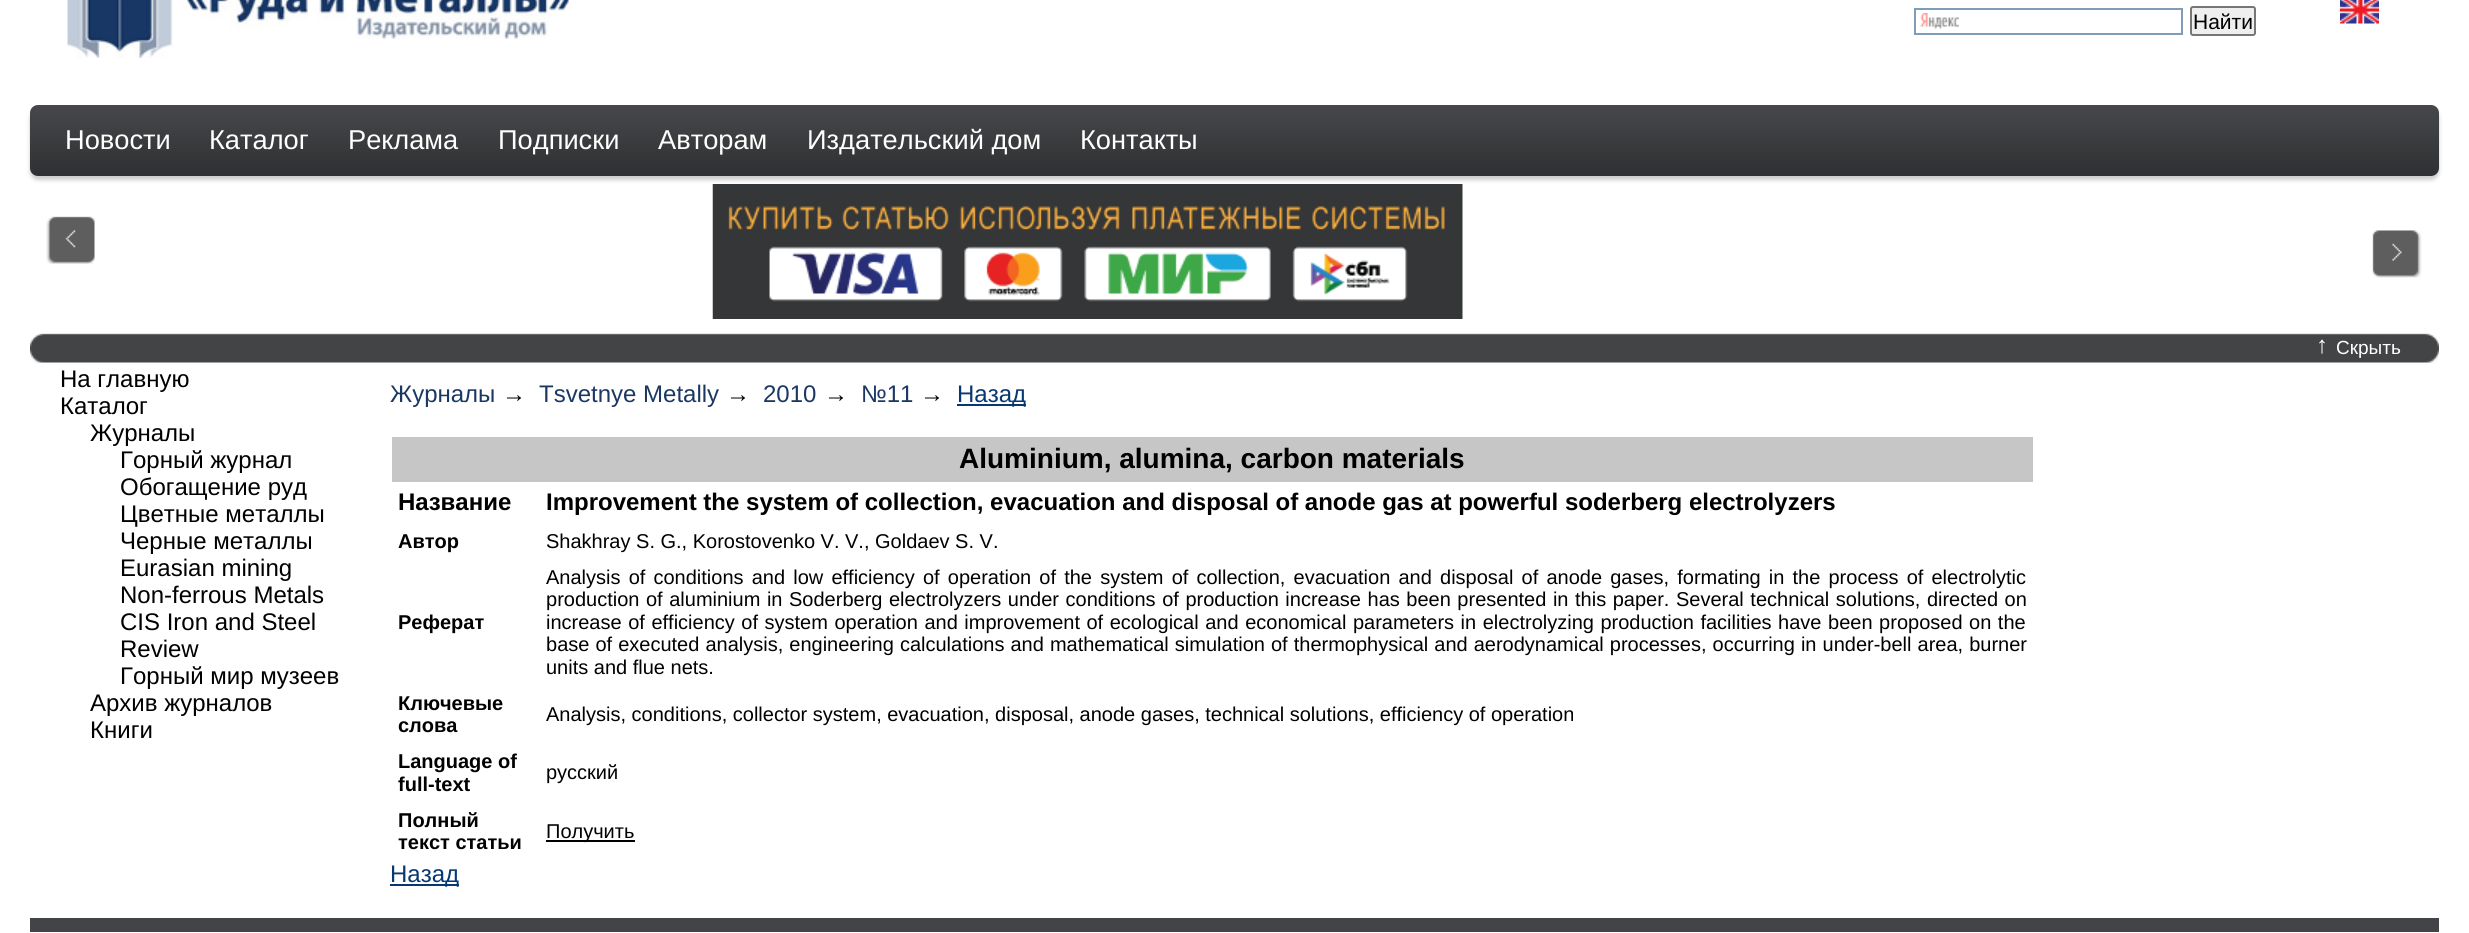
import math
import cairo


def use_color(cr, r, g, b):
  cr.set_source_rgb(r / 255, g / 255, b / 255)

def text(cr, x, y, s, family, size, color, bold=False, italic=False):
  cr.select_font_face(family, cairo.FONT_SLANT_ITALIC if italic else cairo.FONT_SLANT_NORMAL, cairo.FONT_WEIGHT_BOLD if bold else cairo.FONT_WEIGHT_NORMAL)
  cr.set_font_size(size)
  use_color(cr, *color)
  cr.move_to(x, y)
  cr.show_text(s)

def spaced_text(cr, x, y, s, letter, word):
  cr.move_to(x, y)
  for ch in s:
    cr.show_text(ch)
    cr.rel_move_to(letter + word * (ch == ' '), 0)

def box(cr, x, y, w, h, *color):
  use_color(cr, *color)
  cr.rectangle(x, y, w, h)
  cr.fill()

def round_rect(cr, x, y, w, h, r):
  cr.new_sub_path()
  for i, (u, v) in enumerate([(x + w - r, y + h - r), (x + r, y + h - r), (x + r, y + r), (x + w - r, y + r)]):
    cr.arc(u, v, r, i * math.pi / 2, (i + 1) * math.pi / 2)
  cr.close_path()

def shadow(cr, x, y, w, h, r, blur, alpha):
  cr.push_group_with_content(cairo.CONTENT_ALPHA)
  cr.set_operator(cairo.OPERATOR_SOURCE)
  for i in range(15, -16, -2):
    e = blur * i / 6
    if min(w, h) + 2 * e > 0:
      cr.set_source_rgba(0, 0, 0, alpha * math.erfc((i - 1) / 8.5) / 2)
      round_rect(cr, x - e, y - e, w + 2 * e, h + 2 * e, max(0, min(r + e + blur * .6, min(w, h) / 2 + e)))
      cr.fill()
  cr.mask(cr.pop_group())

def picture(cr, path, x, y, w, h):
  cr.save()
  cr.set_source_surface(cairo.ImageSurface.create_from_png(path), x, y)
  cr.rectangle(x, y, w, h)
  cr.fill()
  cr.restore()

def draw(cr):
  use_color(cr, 255, 255, 255)
  cr.paint()
  picture(cr, "img_01.png", 67, 0, 502, 58)
  picture(cr, "img_02.png", 1920, 13, 39, 17)
  cr.rectangle(1915, 9, 267, 25)
  use_color(cr, 127, 157, 185)
  cr.stroke()
  use_color(cr, 239, 239, 239)
  round_rect(cr, 2191, 7, 64, 28, 2)
  cr.fill_preserve()
  use_color(cr, 118, 118, 118)
  cr.stroke()
  picture(cr, "img_03.png", 2340, 0, 39, 24)
  picture(cr, "img_05.png", 712, 184, 751, 135)
  use_color(cr, 204, 204, 204)
  shadow(cr, 30, 110, 2409, 70, 8, 2, 1)
  gradient = cairo.LinearGradient(1235, 105, 1235, 176)
  gradient.add_color_stop_rgba(0, 0.278, 0.282, 0.294, 1)
  gradient.add_color_stop_rgba(1, 0.18, 0.188, 0.196, 1)
  cr.set_source(gradient)
  round_rect(cr, 30, 105, 2409, 71, 8)
  cr.fill()
  picture(cr, "img_04.png", 46, 216, 49, 48)
  picture(cr, "img_06.png", 2372, 230, 50, 48)
  picture(cr, "img_07.png", 44, 333, 2381, 30)
  picture(cr, "img_08.png", 30, 333, 14, 30)
  picture(cr, "img_09.png", 2425, 333, 14, 30)
  box(cr, 957, 404, 69, 2, 6, 56, 116)
  box(cr, 392, 437, 1641, 45, 198, 198, 198)
  box(cr, 546, 840, 89, 2, 0, 0, 0)
  box(cr, 390, 884, 69, 2, 6, 56, 116)
  box(cr, 30, 918, 2409, 14, 67, 68, 72)
  text(cr, 2193, 29, "Найти", "Liberation Sans", 21, (0, 0, 0))
  text(cr, 65, 149, "Новости", "Liberation Sans", 27.25, (255, 255, 255))
  text(cr, 209, 149, "Каталог", "Liberation Sans", 27.25, (255, 255, 255))
  text(cr, 348, 149, "Реклама", "Liberation Sans", 27.25, (255, 255, 255))
  text(cr, 498, 149, "Подписки", "Liberation Sans", 27.25, (255, 255, 255))
  text(cr, 658, 149, "Авторам", "Liberation Sans", 27.25, (255, 255, 255))
  text(cr, 807, 149, "Издательский дом", "Liberation Sans", 27.25, (255, 255, 255))
  text(cr, 1080, 149, "Контакты", "Liberation Sans", 27.25, (255, 255, 255))
  text(cr, 2316, 353, "↑", "Liberation Serif", 24, (255, 255, 255))
  text(cr, 2336, 354, "Скрыть", "Liberation Sans", 19, (255, 255, 255))
  text(cr, 60, 387, "На главную", "Liberation Sans", 24, (0, 0, 0))
  text(cr, 60, 414, "Каталог", "Liberation Sans", 24, (0, 0, 0))
  text(cr, 90, 441, "Журналы", "Liberation Sans", 24, (0, 0, 0))
  text(cr, 120, 468, "Горный журнал", "Liberation Sans", 24, (0, 0, 0))
  text(cr, 120, 495, "Обогащение руд", "Liberation Sans", 24, (0, 0, 0))
  text(cr, 120, 522, "Цветные металлы", "Liberation Sans", 24, (0, 0, 0))
  text(cr, 120, 549, "Черные металлы", "Liberation Sans", 24, (0, 0, 0))
  text(cr, 120, 576, "Eurasian mining", "Liberation Sans", 24, (0, 0, 0))
  text(cr, 120, 603, "Non-ferrous Мetals", "Liberation Sans", 24, (0, 0, 0))
  text(cr, 120, 630, "CIS Iron and Steel", "Liberation Sans", 24, (0, 0, 0))
  text(cr, 120, 657, "Review", "Liberation Sans", 24, (0, 0, 0))
  text(cr, 120, 684, "Горный мир музеев", "Liberation Sans", 24, (0, 0, 0))
  text(cr, 90, 711, "Архив журналов", "Liberation Sans", 24, (0, 0, 0))
  text(cr, 90, 738, "Книги", "Liberation Sans", 24, (0, 0, 0))
  text(cr, 390, 402, "Журналы", "Liberation Sans", 24, (27, 56, 99))
  text(cr, 502, 402, "→", "Liberation Sans", 24, (0, 0, 0))
  text(cr, 539, 402, "Tsvetnye Metally", "Liberation Sans", 24, (27, 56, 99))
  text(cr, 726, 402, "→", "Liberation Sans", 24, (0, 0, 0))
  text(cr, 763, 402, "2010", "Liberation Sans", 24, (27, 56, 99))
  text(cr, 824, 402, "→", "Liberation Sans", 24, (0, 0, 0))
  text(cr, 861, 402, "№11", "Liberation Sans", 24, (27, 56, 99))
  text(cr, 920, 402, "→", "Liberation Sans", 24, (0, 0, 0))
  text(cr, 957, 402, "Назад", "Liberation Sans", 24, (6, 56, 116))
  text(cr, 959, 468, "Aluminium, alumina, carbon materials", "Liberation Sans", 28, (0, 0, 0), bold=True)
  text(cr, 398, 510, "Название", "Liberation Sans", 24, (0, 0, 0), bold=True)
  text(cr, 546, 510, "Improvement the system of collection, evacuation and disposal of anode gas at powerful soderberg electrolyzers", "Liberation Sans", 24, (0, 0, 0), bold=True)
  text(cr, 398, 548, "Автор", "Liberation Sans", 20, (0, 0, 0), bold=True)
  text(cr, 546, 548, "Shakhray S. G., Korostovenko V. V., Goldaev S. V.", "Liberation Sans", 20, (0, 0, 0))
  text(cr, 398, 629, "Реферат", "Liberation Sans", 20, (0, 0, 0), bold=True)
  cr.select_font_face("Liberation Sans")
  spaced_text(cr, 546, 584, "Analysis of conditions and low efficiency of operation of the system of collection, evacuation and disposal of anode gases, formating in the process of electrolytic", 0, 2.6)
  spaced_text(cr, 546, 606, "production of aluminium in Soderberg electrolyzers under conditions of production increase has been presented in this paper. Several technical solutions, directed on", 0, 1)
  spaced_text(cr, 546, 629, "increase of efficiency of system operation and improvement of ecological and economical parameters in electrolyzing production facilities have been proposed on the", 0, 1)
  spaced_text(cr, 546, 651, "base of executed analysis, engineering calculations and mathematical simulation of thermophysical and aerodynamical processes, occurring in under-bell area, burner", 0, 0.5)
  text(cr, 546, 674, "units and flue nets.", "Liberation Sans", 20, (0, 0, 0))
  text(cr, 398, 710, "Ключевые", "Liberation Sans", 20, (0, 0, 0), bold=True)
  text(cr, 398, 732, "слова", "Liberation Sans", 20, (0, 0, 0), bold=True)
  text(cr, 546, 721, "Analysis, conditions, collector system, evacuation, disposal, anode gases, technical solutions, efficiency of operation", "Liberation Sans", 20, (0, 0, 0))
  text(cr, 398, 768, "Language of", "Liberation Sans", 20, (0, 0, 0), bold=True)
  text(cr, 398, 791, "full-text", "Liberation Sans", 20, (0, 0, 0), bold=True)
  text(cr, 546, 779, "русский", "Liberation Sans", 20, (0, 0, 0))
  text(cr, 398, 827, "Полный", "Liberation Sans", 20, (0, 0, 0), bold=True)
  text(cr, 398, 849, "текст статьи", "Liberation Sans", 20, (0, 0, 0), bold=True)
  text(cr, 546, 838, "Получить", "Liberation Sans", 20, (0, 0, 0))
  text(cr, 390, 882, "Назад", "Liberation Sans", 24, (6, 56, 116))


surface = cairo.ImageSurface(cairo.FORMAT_RGB24, 2469, 933)
cr = cairo.Context(surface)
options = cairo.FontOptions()
options.set_hint_metrics(cairo.HINT_METRICS_OFF)
options.set_hint_style(cairo.HINT_STYLE_NONE)
cr.set_font_options(options)
cr.set_miter_limit(4)
draw(cr)
surface.write_to_png("out.png")
